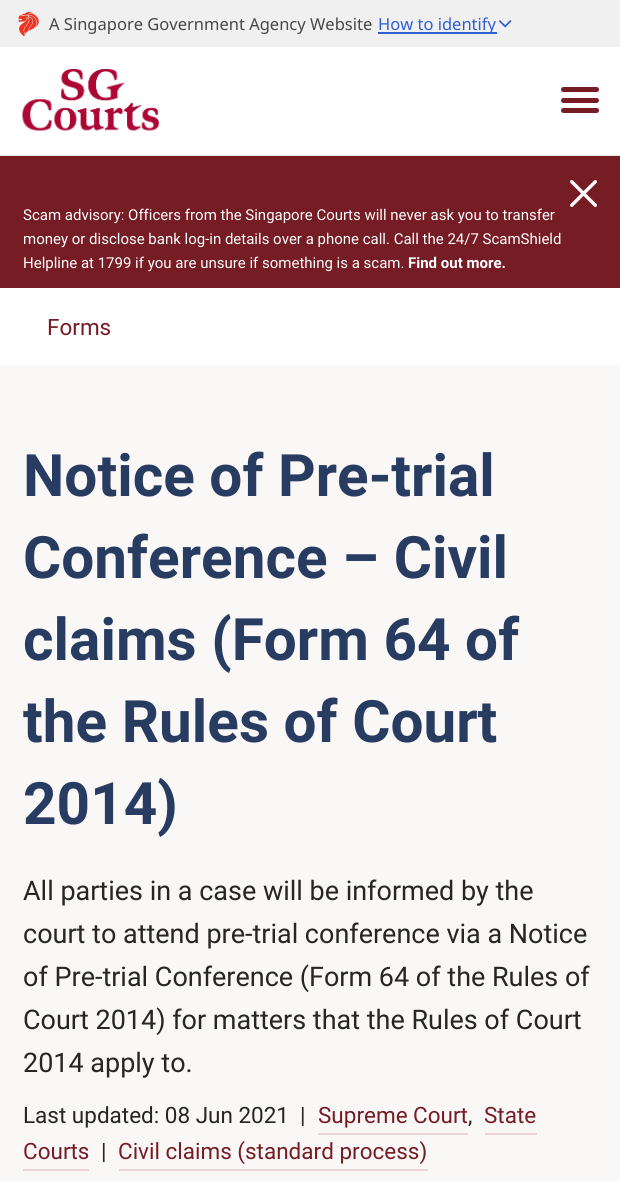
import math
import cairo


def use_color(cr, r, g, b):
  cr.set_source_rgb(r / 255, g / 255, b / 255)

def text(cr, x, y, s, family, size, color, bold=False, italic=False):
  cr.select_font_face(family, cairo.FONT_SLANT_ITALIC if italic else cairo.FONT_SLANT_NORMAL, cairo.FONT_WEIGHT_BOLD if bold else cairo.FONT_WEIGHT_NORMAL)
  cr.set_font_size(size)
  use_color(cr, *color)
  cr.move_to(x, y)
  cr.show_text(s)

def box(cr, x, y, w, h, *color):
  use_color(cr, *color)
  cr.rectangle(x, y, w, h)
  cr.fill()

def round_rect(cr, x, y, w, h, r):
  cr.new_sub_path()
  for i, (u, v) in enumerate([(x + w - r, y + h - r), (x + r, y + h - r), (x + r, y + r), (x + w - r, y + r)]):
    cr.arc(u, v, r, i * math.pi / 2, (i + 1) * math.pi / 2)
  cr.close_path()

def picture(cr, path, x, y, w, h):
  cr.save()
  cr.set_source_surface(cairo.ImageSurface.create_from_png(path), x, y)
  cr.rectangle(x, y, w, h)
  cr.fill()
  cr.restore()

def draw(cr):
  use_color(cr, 255, 255, 255)
  cr.paint()
  box(cr, 0, 0, 620, 47, 240, 240, 240)
  picture(cr, "img_01.png", 18, 12, 21, 25)
  box(cr, 378, 32, 119, 2, 47, 95, 208)
  picture(cr, "img_02.png", 498, 20, 14, 8)
  box(cr, 0, 155, 620, 1, 230, 230, 230)
  picture(cr, "img_03.png", 22, 69, 137, 62)
  use_color(cr, 117, 28, 36)
  round_rect(cr, 561, 87, 38, 5, 2.5)
  cr.fill()
  round_rect(cr, 561, 98, 38, 5, 2.5)
  cr.fill()
  round_rect(cr, 561, 108, 38, 5, 2.5)
  cr.fill()
  box(cr, 0, 156, 620, 132, 117, 28, 36)
  picture(cr, "img_04.png", 570, 180, 27, 27)
  box(cr, 0, 365, 620, 816, 250, 247, 247)
  box(cr, 318, 1133, 150, 2, 235, 211, 215)
  box(cr, 485, 1133, 52, 2, 235, 211, 215)
  box(cr, 23, 1169, 66, 2, 235, 211, 215)
  box(cr, 119, 1169, 309, 2, 235, 211, 215)
  text(cr, 49, 30, "A Singapore Government Agency Website", "Noto Sans", 16.5, (71, 71, 71))
  text(cr, 378, 30, "How to identify", "Noto Sans", 16.5, (47, 95, 208))
  text(cr, 23, 220, "Scam advisory: Officers from the Singapore Courts will never ask you to transfer", "Roboto", 15, (255, 255, 255))
  text(cr, 23, 244, "money or disclose bank log-in details over a phone call. Call the 24/7 ScamShield", "Roboto", 15, (255, 255, 255))
  text(cr, 23, 268, "Helpline at 1799 if you are unsure if something is a scam.", "Roboto", 15, (255, 255, 255))
  text(cr, 408, 268, "Find out more.", "Roboto", 15, (255, 255, 255), bold=True)
  text(cr, 47, 335, "Forms", "Roboto", 22.5, (117, 28, 36))
  text(cr, 23, 496, "Notice of Pre-trial", "Roboto", 58.5, (40, 60, 97), bold=True)
  text(cr, 23, 578, "Conference – Civil", "Roboto", 58.5, (40, 60, 97), bold=True)
  text(cr, 23, 660, "claims (Form 64 of", "Roboto", 58.5, (40, 60, 97), bold=True)
  text(cr, 23, 742, "the Rules of Court", "Roboto", 58.5, (40, 60, 97), bold=True)
  text(cr, 23, 824, "2014)", "Roboto", 58.5, (40, 60, 97), bold=True)
  text(cr, 23, 900, "All parties in a case will be informed by the", "Roboto", 27, (40, 38, 36))
  text(cr, 23, 943, "court to attend pre-trial conference via a Notice", "Roboto", 27, (40, 38, 36))
  text(cr, 23, 986, "of Pre-trial Conference (Form 64 of the Rules of", "Roboto", 27, (40, 38, 36))
  text(cr, 23, 1029, "Court 2014) for matters that the Rules of Court", "Roboto", 27, (40, 38, 36))
  text(cr, 23, 1072, "2014 apply to.", "Roboto", 27, (40, 38, 36))
  text(cr, 300, 1123, "|", "Roboto", 22.5, (40, 38, 36))
  text(cr, 318, 1123, "Supreme Court", "Roboto", 22.5, (117, 28, 36))
  text(cr, 468, 1123, ",", "Roboto", 22.5, (40, 38, 36))
  text(cr, 484, 1123, "State", "Roboto", 22.5, (117, 28, 36))
  text(cr, 23, 1159, "Courts", "Roboto", 22.5, (117, 28, 36))
  text(cr, 23, 1123, "Last updated: 08 Jun 2021", "Roboto", 22.5, (40, 38, 36))
  text(cr, 101, 1159, "|", "Roboto", 22.5, (40, 38, 36))
  text(cr, 118, 1159, "Civil claims (standard process)", "Roboto", 22.5, (117, 28, 36))


surface = cairo.ImageSurface(cairo.FORMAT_RGB24, 620, 1181)
cr = cairo.Context(surface)
options = cairo.FontOptions()
options.set_hint_metrics(cairo.HINT_METRICS_OFF)
options.set_hint_style(cairo.HINT_STYLE_NONE)
cr.set_font_options(options)
cr.set_miter_limit(4)
draw(cr)
surface.write_to_png("out.png")
